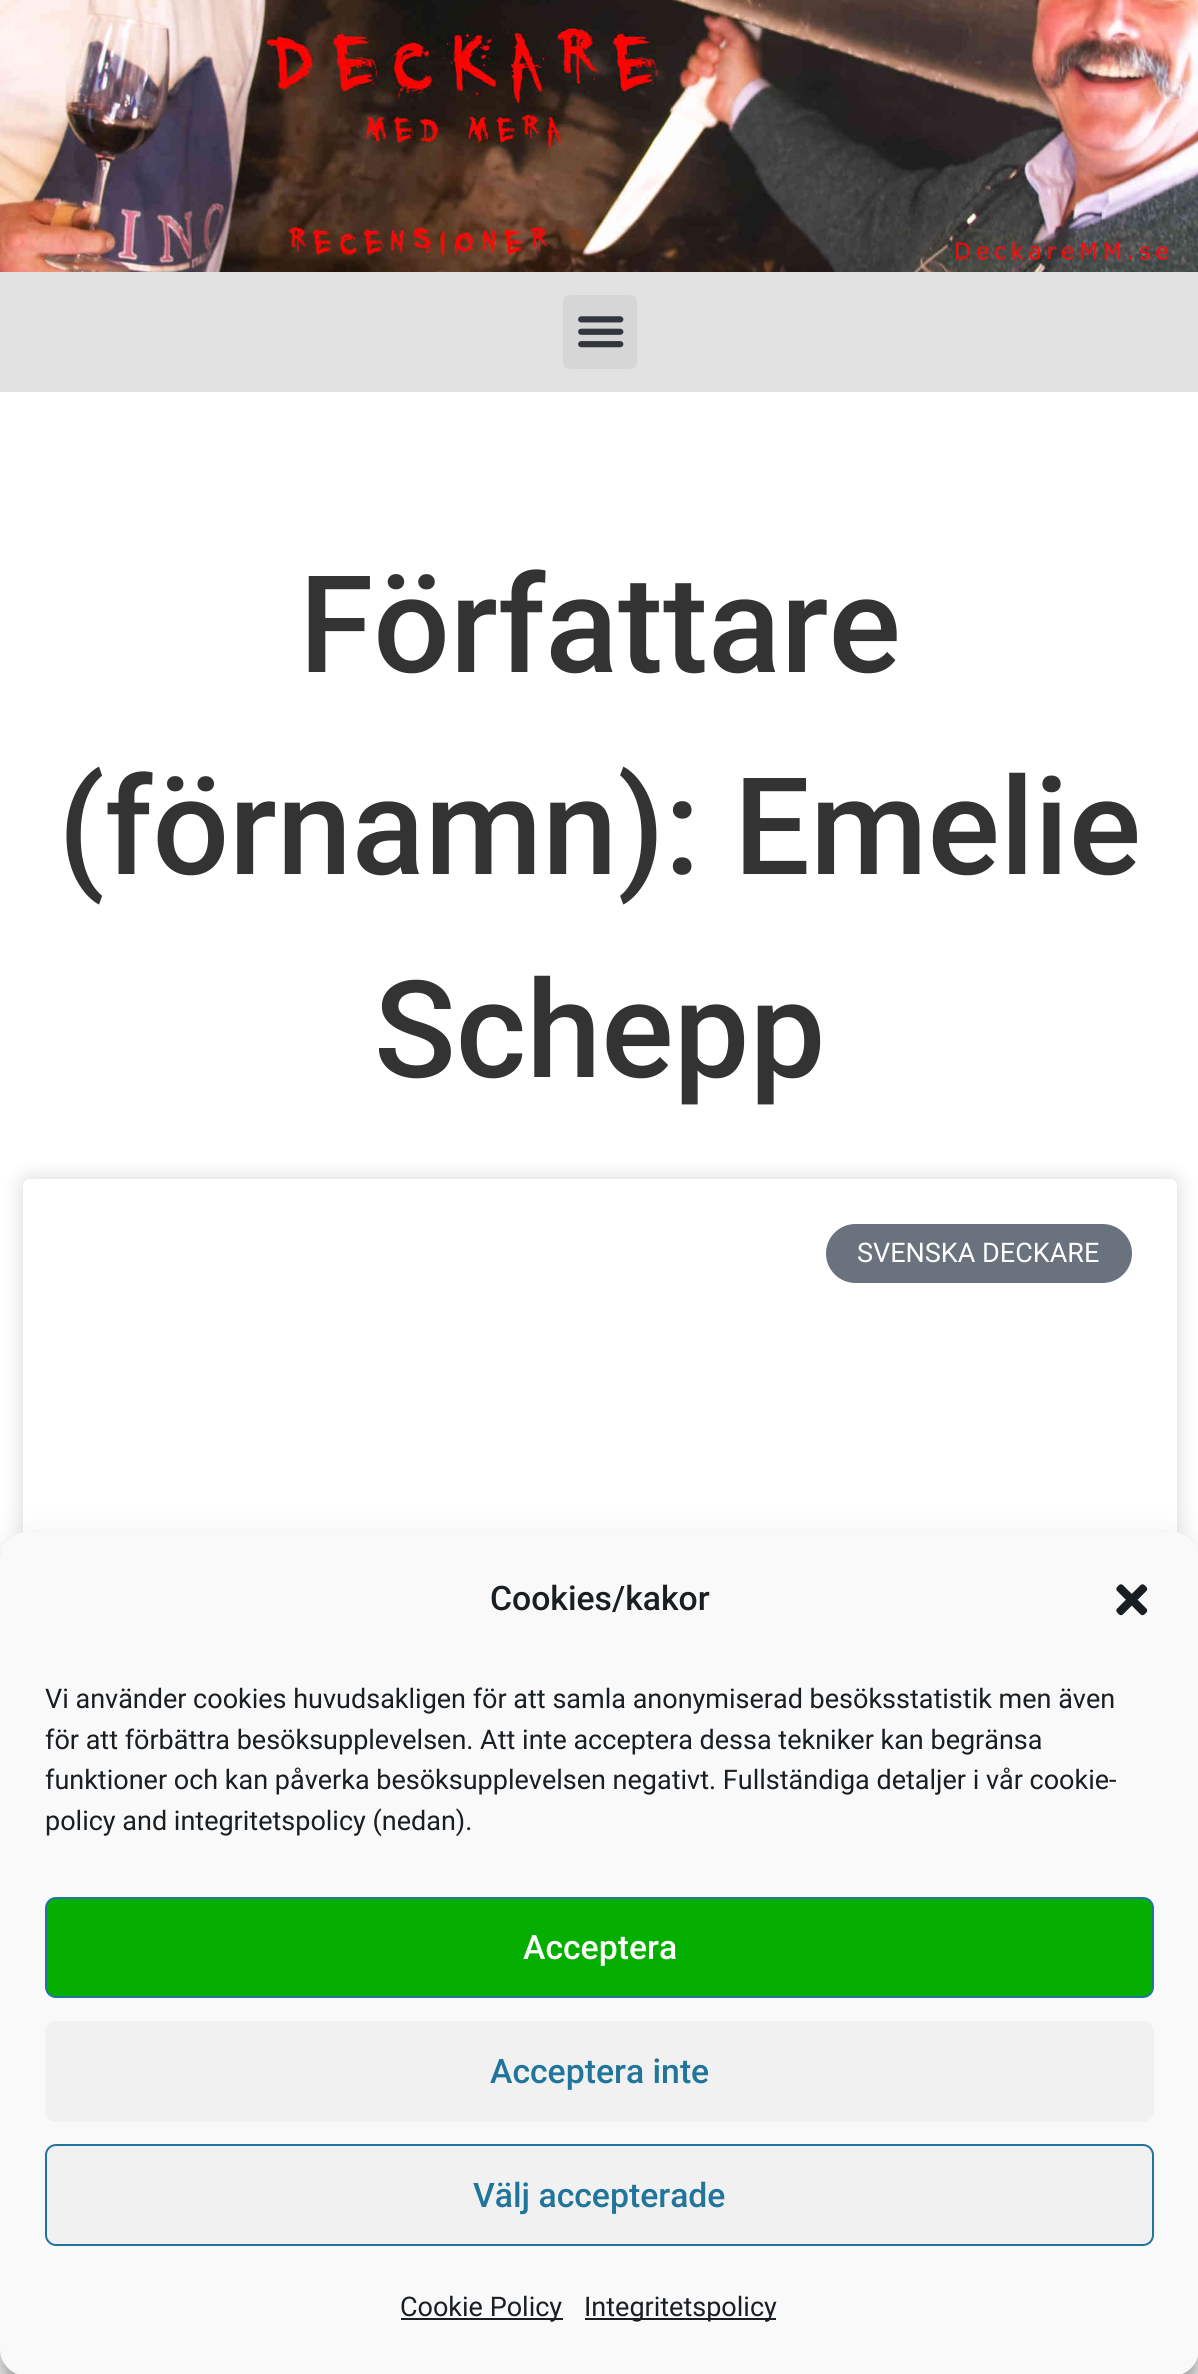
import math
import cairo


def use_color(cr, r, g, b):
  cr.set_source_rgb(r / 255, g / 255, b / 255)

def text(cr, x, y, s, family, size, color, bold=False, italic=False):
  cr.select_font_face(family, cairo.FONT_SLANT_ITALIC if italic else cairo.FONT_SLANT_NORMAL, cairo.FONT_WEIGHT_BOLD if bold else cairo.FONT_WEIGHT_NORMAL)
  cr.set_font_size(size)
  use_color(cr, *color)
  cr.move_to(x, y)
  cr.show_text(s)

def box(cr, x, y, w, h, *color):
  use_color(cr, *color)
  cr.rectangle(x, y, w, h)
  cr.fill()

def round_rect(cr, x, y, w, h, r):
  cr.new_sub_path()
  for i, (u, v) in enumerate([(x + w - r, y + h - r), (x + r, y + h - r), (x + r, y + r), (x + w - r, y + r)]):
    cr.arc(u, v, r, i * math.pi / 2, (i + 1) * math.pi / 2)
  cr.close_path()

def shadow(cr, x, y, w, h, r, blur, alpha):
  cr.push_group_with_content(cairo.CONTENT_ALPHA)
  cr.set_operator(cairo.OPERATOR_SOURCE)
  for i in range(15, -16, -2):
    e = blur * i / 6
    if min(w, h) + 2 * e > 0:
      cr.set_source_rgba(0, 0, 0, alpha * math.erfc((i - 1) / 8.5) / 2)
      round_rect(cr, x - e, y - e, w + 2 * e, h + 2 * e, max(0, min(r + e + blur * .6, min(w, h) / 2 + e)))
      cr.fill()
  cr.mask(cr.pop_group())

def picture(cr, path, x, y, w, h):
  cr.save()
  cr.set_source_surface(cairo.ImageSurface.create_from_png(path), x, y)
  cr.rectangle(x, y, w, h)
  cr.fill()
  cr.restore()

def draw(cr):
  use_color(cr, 255, 255, 255)
  cr.paint()
  picture(cr, "img_01.png", 0, 0, 1198, 272)
  box(cr, 0, 272, 1198, 120, 225, 225, 225)
  use_color(cr, 214, 214, 214)
  round_rect(cr, 563, 295, 74, 74, 7)
  cr.fill()
  picture(cr, "img_02.png", 578, 316, 46, 32)
  use_color(cr, 0, 0, 0)
  shadow(cr, 23, 1179, 1154, 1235, 7, 11, 0.15)
  use_color(cr, 255, 255, 255)
  round_rect(cr, 23, 1179, 1154, 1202, 7)
  cr.fill()
  use_color(cr, 105, 114, 125)
  round_rect(cr, 826, 1224, 306, 59, 29.5)
  cr.fill()
  use_color(cr, 0, 0, 0)
  shadow(cr, 0, 1546, 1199, 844, 27, 7, 0.23)
  shadow(cr, 0, 1555, 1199, 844, 27, 22.5, 0.19)
  use_color(cr, 249, 249, 249)
  round_rect(cr, 0, 1532, 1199, 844, 27)
  cr.fill()
  picture(cr, "img_03.png", 1116, 1584, 32, 32)
  use_color(cr, 5, 175, 0)
  round_rect(cr, 46, 1898, 1107, 99, 10)
  cr.fill_preserve()
  use_color(cr, 33, 117, 155)
  cr.stroke()
  use_color(cr, 241, 241, 241)
  round_rect(cr, 45, 2021, 1109, 101, 11)
  cr.fill()
  round_rect(cr, 46, 2145, 1107, 100, 10)
  cr.fill_preserve()
  use_color(cr, 33, 117, 155)
  cr.stroke()
  box(cr, 401, 2318, 162, 2, 25, 30, 35)
  box(cr, 585, 2318, 191, 2, 25, 30, 35)
  text(cr, 299, 672, "Författare", "Roboto Medium", 135, (51, 51, 51))
  text(cr, 58, 874, "(förnamn): Emelie", "Roboto Medium", 135, (51, 51, 51))
  text(cr, 374, 1077, "Schepp", "Roboto Medium", 135, (51, 51, 51))
  text(cr, 857, 1262, "SVENSKA DECKARE", "Roboto", 27, (255, 255, 255))
  text(cr, 490, 1610, "Cookies/kakor", "Roboto Medium", 33.75, (25, 30, 35))
  text(cr, 45, 1708, "Vi använder cookies huvudsakligen för att samla anonymiserad besöksstatistik men även", "Roboto", 27, (25, 30, 35))
  text(cr, 45, 1749, "för att förbättra besöksupplevelsen. Att inte acceptera dessa tekniker kan begränsa", "Roboto", 27, (25, 30, 35))
  text(cr, 45, 1789, "funktioner och kan påverka besöksupplevelsen negativt. Fullständiga detaljer i vår cookie-", "Roboto", 27, (25, 30, 35))
  text(cr, 45, 1830, "policy and integritetspolicy (nedan).", "Roboto", 27, (25, 30, 35))
  text(cr, 523, 1959, "Acceptera", "Roboto Medium", 33.75, (255, 255, 255))
  text(cr, 490, 2083, "Acceptera inte", "Roboto Medium", 33.75, (33, 117, 155))
  text(cr, 473, 2207, "Välj accepterade", "Roboto Medium", 33.75, (33, 117, 155))
  text(cr, 400, 2316, "Cookie Policy", "Roboto", 27, (25, 30, 35))
  text(cr, 584, 2316, "Integritetspolicy", "Roboto", 27, (25, 30, 35))


surface = cairo.ImageSurface(cairo.FORMAT_RGB24, 1198, 2374)
cr = cairo.Context(surface)
options = cairo.FontOptions()
options.set_hint_metrics(cairo.HINT_METRICS_OFF)
options.set_hint_style(cairo.HINT_STYLE_NONE)
cr.set_font_options(options)
cr.set_miter_limit(4)
draw(cr)
surface.write_to_png("out.png")
